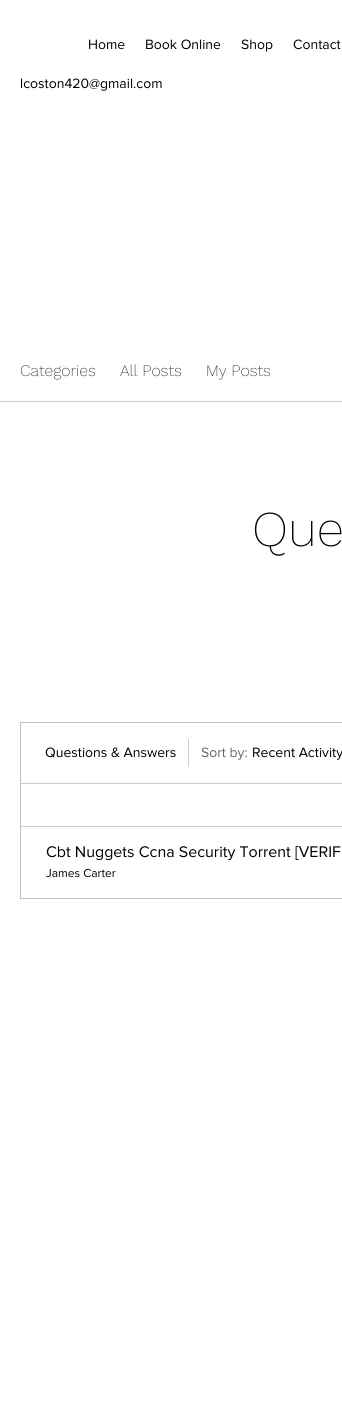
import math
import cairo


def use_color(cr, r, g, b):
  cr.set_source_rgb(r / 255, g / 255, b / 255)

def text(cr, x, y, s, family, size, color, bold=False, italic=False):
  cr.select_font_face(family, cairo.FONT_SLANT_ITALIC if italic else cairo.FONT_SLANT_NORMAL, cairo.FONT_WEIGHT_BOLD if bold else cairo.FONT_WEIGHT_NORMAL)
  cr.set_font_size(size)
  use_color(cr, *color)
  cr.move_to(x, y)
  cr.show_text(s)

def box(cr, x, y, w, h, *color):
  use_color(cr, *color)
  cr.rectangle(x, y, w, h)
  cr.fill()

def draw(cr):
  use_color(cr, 255, 255, 255)
  cr.paint()
  box(cr, 0, 401, 342, 1, 204, 204, 204)
  cr.rectangle(20.5, 722.5, 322, 176)
  use_color(cr, 191, 191, 191)
  cr.set_line_width(1)
  cr.stroke()
  box(cr, 188, 739, 1, 28, 204, 204, 204)
  box(cr, 21, 783, 321, 1, 204, 204, 204)
  box(cr, 21, 826, 321, 1, 204, 204, 204)
  text(cr, 88, 49, "Home", "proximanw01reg", 14, (0, 0, 0))
  text(cr, 145, 49, "Book Online", "proximanw01reg", 14, (0, 0, 0))
  text(cr, 241, 49, "Shop", "proximanw01reg", 14, (0, 0, 0))
  text(cr, 293, 49, "Contact", "proximanw01reg", 14, (0, 0, 0))
  text(cr, 20, 88, "lcoston420@gmail.com", "proximanw01reg", 14, (0, 0, 0))
  text(cr, 20, 376, "Categories", "Work Sans ExtraLight", 16, (0, 0, 0))
  text(cr, 120, 376, "All Posts", "Work Sans ExtraLight", 16, (0, 0, 0))
  text(cr, 206, 376, "My Posts", "Work Sans ExtraLight", 16, (0, 0, 0))
  text(cr, 252, 546, "Que", "Work Sans ExtraLight", 50, (0, 0, 0))
  text(cr, 45, 757, "Questions & Answers", "proximanw01reg", 14, (0, 0, 0))
  text(cr, 201, 757, "Sort by:", "proximanw01reg", 14, (102, 102, 102))
  text(cr, 252, 757, "Recent Activity", "proximanw01reg", 14, (0, 0, 0))
  cr.save()
  cr.rectangle(46, 844, 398, 16)
  cr.clip()
  text(cr, 46, 857, "Cbt Nuggets Ccna Security Torrent [VERIF", "proximanw01reg", 16, (0, 0, 0))
  cr.restore()
  text(cr, 46, 877, "James Carter", "proximanw01reg", 12, (0, 0, 0))


surface = cairo.ImageSurface(cairo.FORMAT_RGB24, 342, 1403)
cr = cairo.Context(surface)
options = cairo.FontOptions()
options.set_hint_metrics(cairo.HINT_METRICS_OFF)
options.set_hint_style(cairo.HINT_STYLE_NONE)
cr.set_font_options(options)
cr.set_miter_limit(4)
draw(cr)
surface.write_to_png("out.png")
